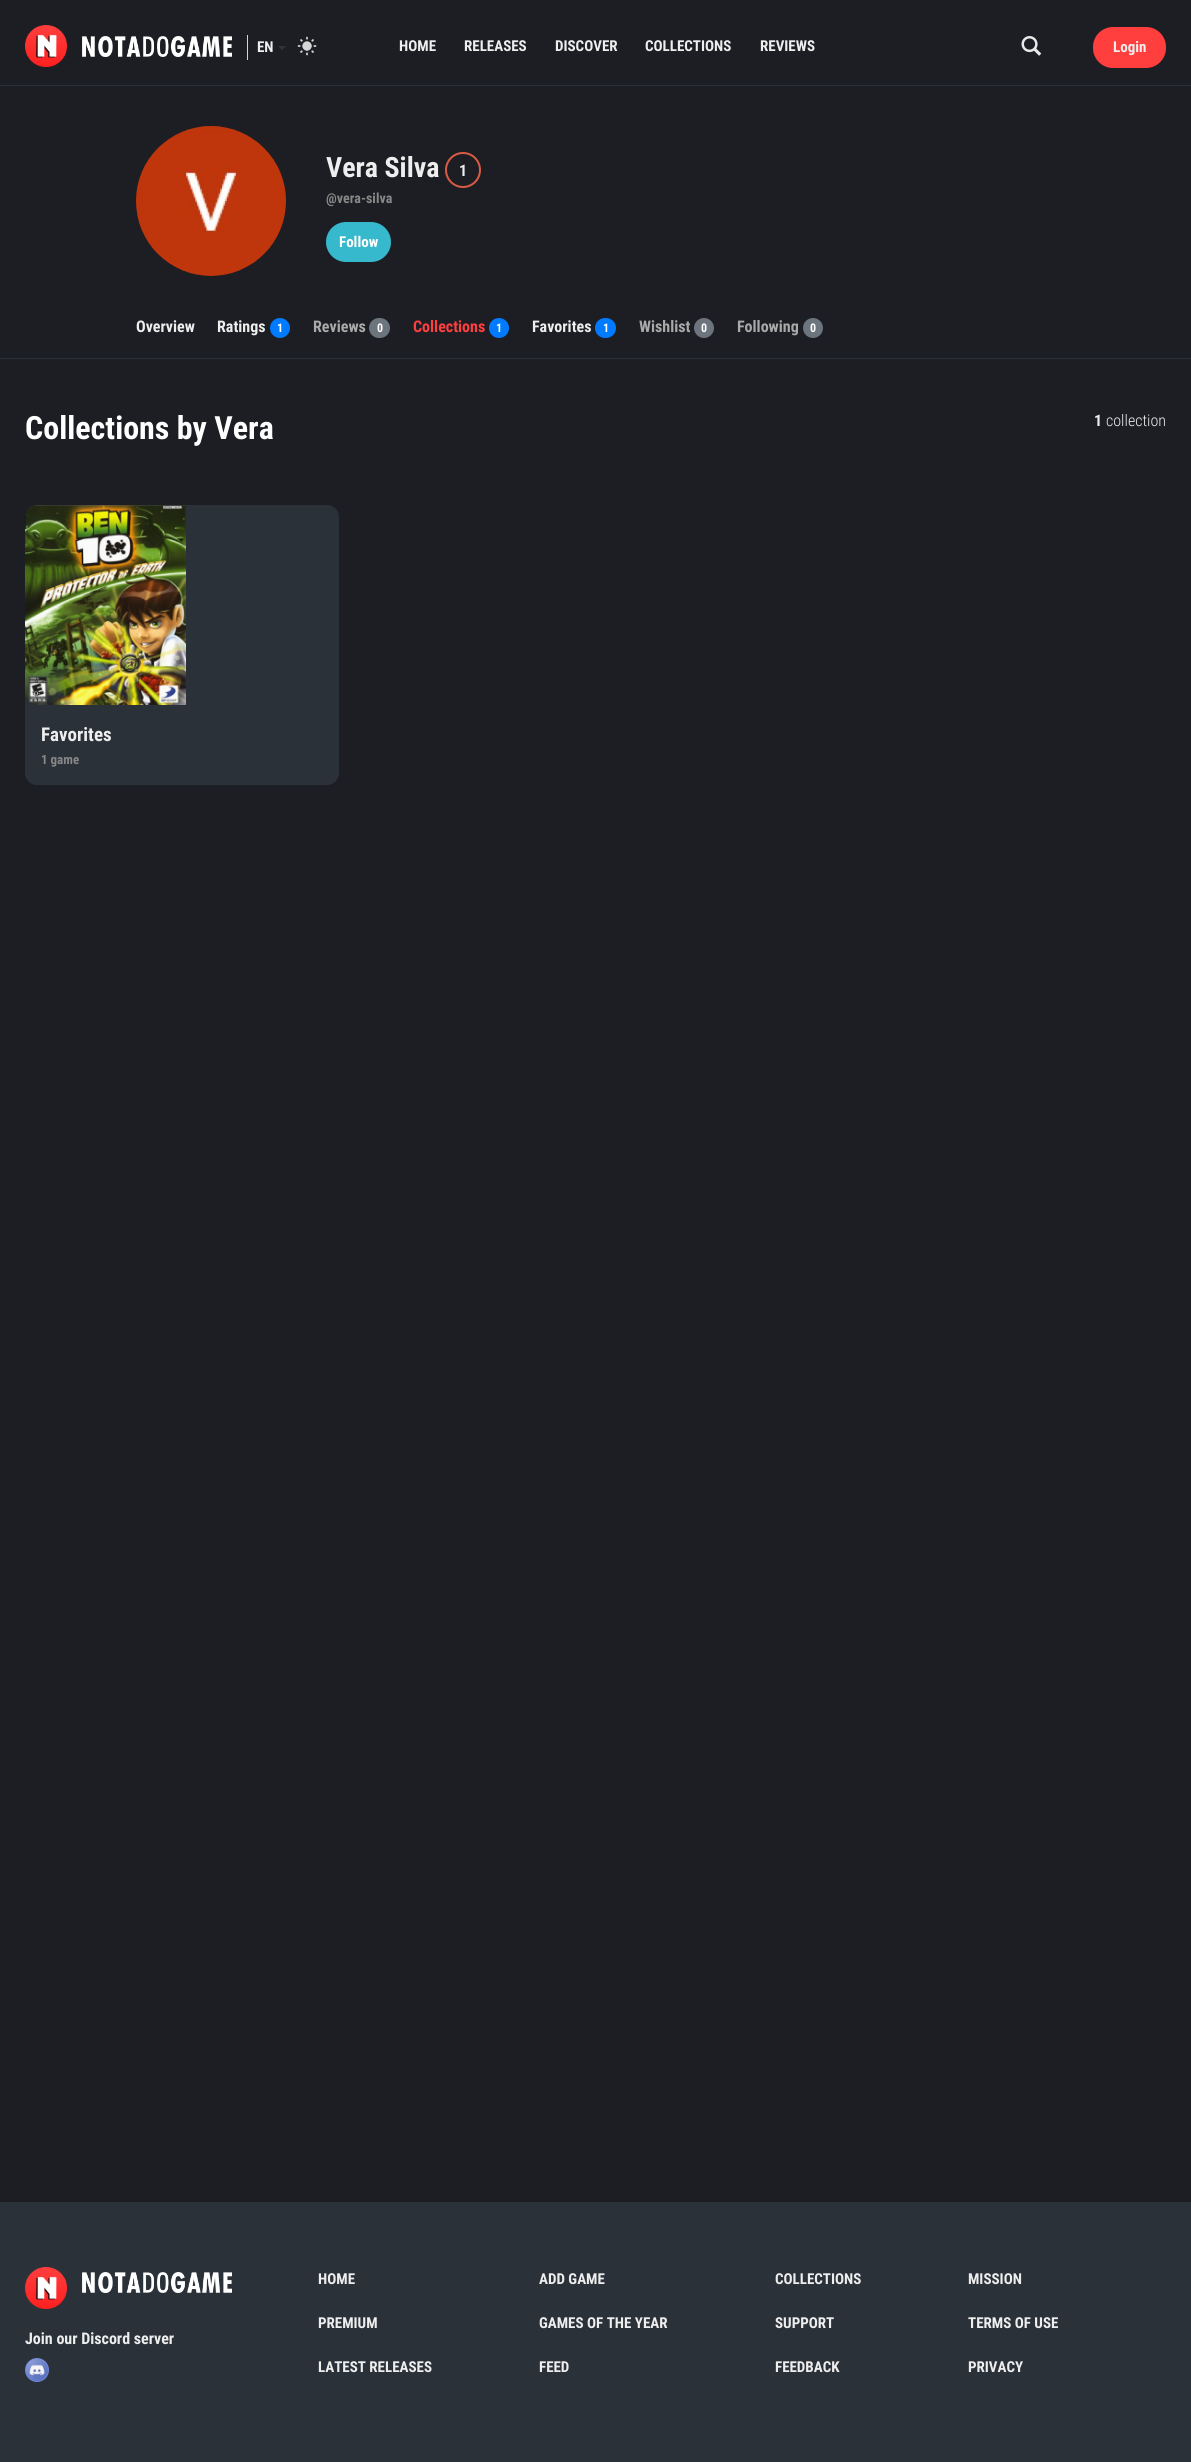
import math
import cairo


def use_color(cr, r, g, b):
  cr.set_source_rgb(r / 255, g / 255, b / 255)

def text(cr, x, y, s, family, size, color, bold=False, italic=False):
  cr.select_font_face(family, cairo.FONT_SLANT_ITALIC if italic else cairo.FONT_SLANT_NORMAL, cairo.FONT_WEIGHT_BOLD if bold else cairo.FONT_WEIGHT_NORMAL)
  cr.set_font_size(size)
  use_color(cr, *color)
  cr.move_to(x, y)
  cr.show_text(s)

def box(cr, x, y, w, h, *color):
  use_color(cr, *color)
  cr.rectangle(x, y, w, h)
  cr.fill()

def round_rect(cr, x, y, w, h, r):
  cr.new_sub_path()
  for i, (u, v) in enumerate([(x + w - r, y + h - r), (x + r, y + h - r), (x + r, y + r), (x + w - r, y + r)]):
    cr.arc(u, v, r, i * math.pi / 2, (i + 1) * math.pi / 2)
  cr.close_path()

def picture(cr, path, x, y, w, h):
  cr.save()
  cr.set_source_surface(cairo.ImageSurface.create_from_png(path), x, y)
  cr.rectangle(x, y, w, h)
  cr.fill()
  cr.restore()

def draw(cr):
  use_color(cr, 28, 30, 36)
  cr.paint()
  picture(cr, "img_01.png", 25, 25, 42, 42)
  picture(cr, "img_02.png", 82, 36, 150, 21)
  box(cr, 247, 35, 1, 25, 212, 212, 212)
  use_color(cr, 51, 51, 51)
  cr.new_path()
  cr.move_to(278, 46)
  cr.line_to(286, 46)
  cr.line_to(282, 50)
  cr.close_path()
  cr.fill()
  picture(cr, "img_03.png", 297, 36, 20, 20)
  picture(cr, "img_04.png", 1021, 36, 21, 20)
  use_color(cr, 255, 62, 62)
  round_rect(cr, 1093, 27, 73, 41, 20)
  cr.fill()
  box(cr, 0, 85, 1191, 1, 43, 49, 57)
  picture(cr, "img_05.png", 136, 126, 150, 150)
  cr.arc(463, 170, 17, 0, 2 * math.pi)
  use_color(cr, 217, 91, 67)
  cr.stroke()
  use_color(cr, 54, 185, 204)
  round_rect(cr, 327, 223, 63, 38, 19)
  cr.fill_preserve()
  cr.stroke()
  use_color(cr, 0, 123, 255)
  cr.arc(280, 328, 10, 0, 2 * math.pi)
  cr.fill()
  use_color(cr, 108, 117, 125)
  round_rect(cr, 369, 318, 21, 20, 10)
  cr.fill()
  use_color(cr, 0, 123, 255)
  cr.arc(499, 328, 10, 0, 2 * math.pi)
  cr.fill()
  round_rect(cr, 595, 318, 21, 20, 10)
  cr.fill()
  use_color(cr, 108, 117, 125)
  cr.arc(704, 328, 10, 0, 2 * math.pi)
  cr.fill()
  cr.arc(813, 328, 10, 0, 2 * math.pi)
  cr.fill()
  box(cr, 0, 358, 1191, 1, 43, 49, 57)
  round_rect(cr, 25, 505, 314, 280, 12)
  cr.fill()
  picture(cr, "img_06.png", 25, 505, 161, 200)
  box(cr, 0, 2202, 1191, 260, 43, 49, 57)
  picture(cr, "img_07.png", 25, 2267, 42, 42)
  picture(cr, "img_08.png", 82, 2272, 150, 21)
  use_color(cr, 114, 137, 218)
  cr.arc(37, 2370, 12, 0, 2 * math.pi)
  cr.fill()
  picture(cr, "img_09.png", 26, 2359, 22, 22)
  text(cr, 257, 52, "EN", "Roboto Condensed", 15, (238, 238, 238), bold=True)
  text(cr, 399, 51, "HOME", "Roboto Condensed", 15, (238, 238, 238), bold=True)
  text(cr, 464, 51, "RELEASES", "Roboto Condensed", 15, (238, 238, 238), bold=True)
  text(cr, 555, 51, "DISCOVER", "Roboto Condensed", 15, (238, 238, 238), bold=True)
  text(cr, 645, 51, "COLLECTIONS", "Roboto Condensed", 15, (238, 238, 238), bold=True)
  text(cr, 760, 51, "REVIEWS", "Roboto Condensed", 15, (238, 238, 238), bold=True)
  text(cr, 1113, 52, "Login", "Roboto Condensed", 15, (238, 238, 238), bold=True)
  text(cr, 326, 177, "Vera Silva", "Roboto Condensed", 28, (238, 238, 238), bold=True)
  text(cr, 459, 176, "1", "Roboto Condensed", 16, (238, 238, 238), bold=True)
  text(cr, 326, 203, "@vera-silva", "Roboto Condensed", 14, (136, 136, 136), bold=True)
  text(cr, 339, 247, "Follow", "Roboto Condensed", 15, (255, 255, 255), bold=True)
  text(cr, 136, 332, "Overview", "Roboto Condensed", 16, (238, 238, 238), bold=True)
  text(cr, 217, 332, "Ratings", "Roboto Condensed", 16, (238, 238, 238), bold=True)
  text(cr, 277, 332, "1", "Roboto Condensed", 12, (255, 255, 255), bold=True)
  text(cr, 313, 332, "Reviews", "Roboto Condensed", 16, (170, 170, 170), bold=True)
  text(cr, 377, 332, "0", "Roboto Condensed", 12, (255, 255, 255), bold=True)
  text(cr, 413, 332, "Collections", "Roboto Condensed", 16, (255, 62, 62), bold=True)
  text(cr, 496, 332, "1", "Roboto Condensed", 12, (255, 255, 255), bold=True)
  text(cr, 532, 332, "Favorites", "Roboto Condensed", 16, (238, 238, 238), bold=True)
  text(cr, 603, 332, "1", "Roboto Condensed", 12, (255, 255, 255), bold=True)
  text(cr, 639, 332, "Wishlist", "Roboto Condensed", 16, (170, 170, 170), bold=True)
  text(cr, 701, 332, "0", "Roboto Condensed", 12, (255, 255, 255), bold=True)
  text(cr, 737, 332, "Following", "Roboto Condensed", 16, (170, 170, 170), bold=True)
  text(cr, 810, 332, "0", "Roboto Condensed", 12, (255, 255, 255), bold=True)
  text(cr, 25, 439, "Collections by Vera", "Roboto Condensed", 32, (255, 255, 255), bold=True)
  text(cr, 1094, 426, "1", "Roboto Condensed", 16, (238, 238, 238), bold=True)
  text(cr, 1106, 426, "collection", "Roboto Condensed Light", 16, (238, 238, 238))
  text(cr, 41, 741, "Favorites", "Roboto Condensed", 19, (238, 238, 238), bold=True)
  text(cr, 41, 764, "1 game", "Roboto Condensed", 13, (136, 136, 136), bold=True)
  text(cr, 25, 2344, "Join our Discord server", "Roboto Condensed", 16, (238, 238, 238), bold=True)
  text(cr, 318, 2284, "HOME", "Roboto Condensed", 15, (238, 238, 238), bold=True)
  text(cr, 539, 2284, "ADD GAME", "Roboto Condensed", 15, (238, 238, 238), bold=True)
  text(cr, 775, 2284, "COLLECTIONS", "Roboto Condensed", 15, (238, 238, 238), bold=True)
  text(cr, 968, 2284, "MISSION", "Roboto Condensed", 15, (238, 238, 238), bold=True)
  text(cr, 318, 2328, "PREMIUM", "Roboto Condensed", 15, (238, 238, 238), bold=True)
  text(cr, 539, 2328, "GAMES OF THE YEAR", "Roboto Condensed", 15, (238, 238, 238), bold=True)
  text(cr, 775, 2328, "SUPPORT", "Roboto Condensed", 15, (238, 238, 238), bold=True)
  text(cr, 968, 2328, "TERMS OF USE", "Roboto Condensed", 15, (238, 238, 238), bold=True)
  text(cr, 318, 2372, "LATEST RELEASES", "Roboto Condensed", 15, (238, 238, 238), bold=True)
  text(cr, 539, 2372, "FEED", "Roboto Condensed", 15, (238, 238, 238), bold=True)
  text(cr, 775, 2372, "FEEDBACK", "Roboto Condensed", 15, (238, 238, 238), bold=True)
  text(cr, 968, 2372, "PRIVACY", "Roboto Condensed", 15, (238, 238, 238), bold=True)


surface = cairo.ImageSurface(cairo.FORMAT_RGB24, 1191, 2462)
cr = cairo.Context(surface)
options = cairo.FontOptions()
options.set_hint_metrics(cairo.HINT_METRICS_OFF)
options.set_hint_style(cairo.HINT_STYLE_NONE)
cr.set_font_options(options)
cr.set_miter_limit(4)
draw(cr)
surface.write_to_png("out.png")
